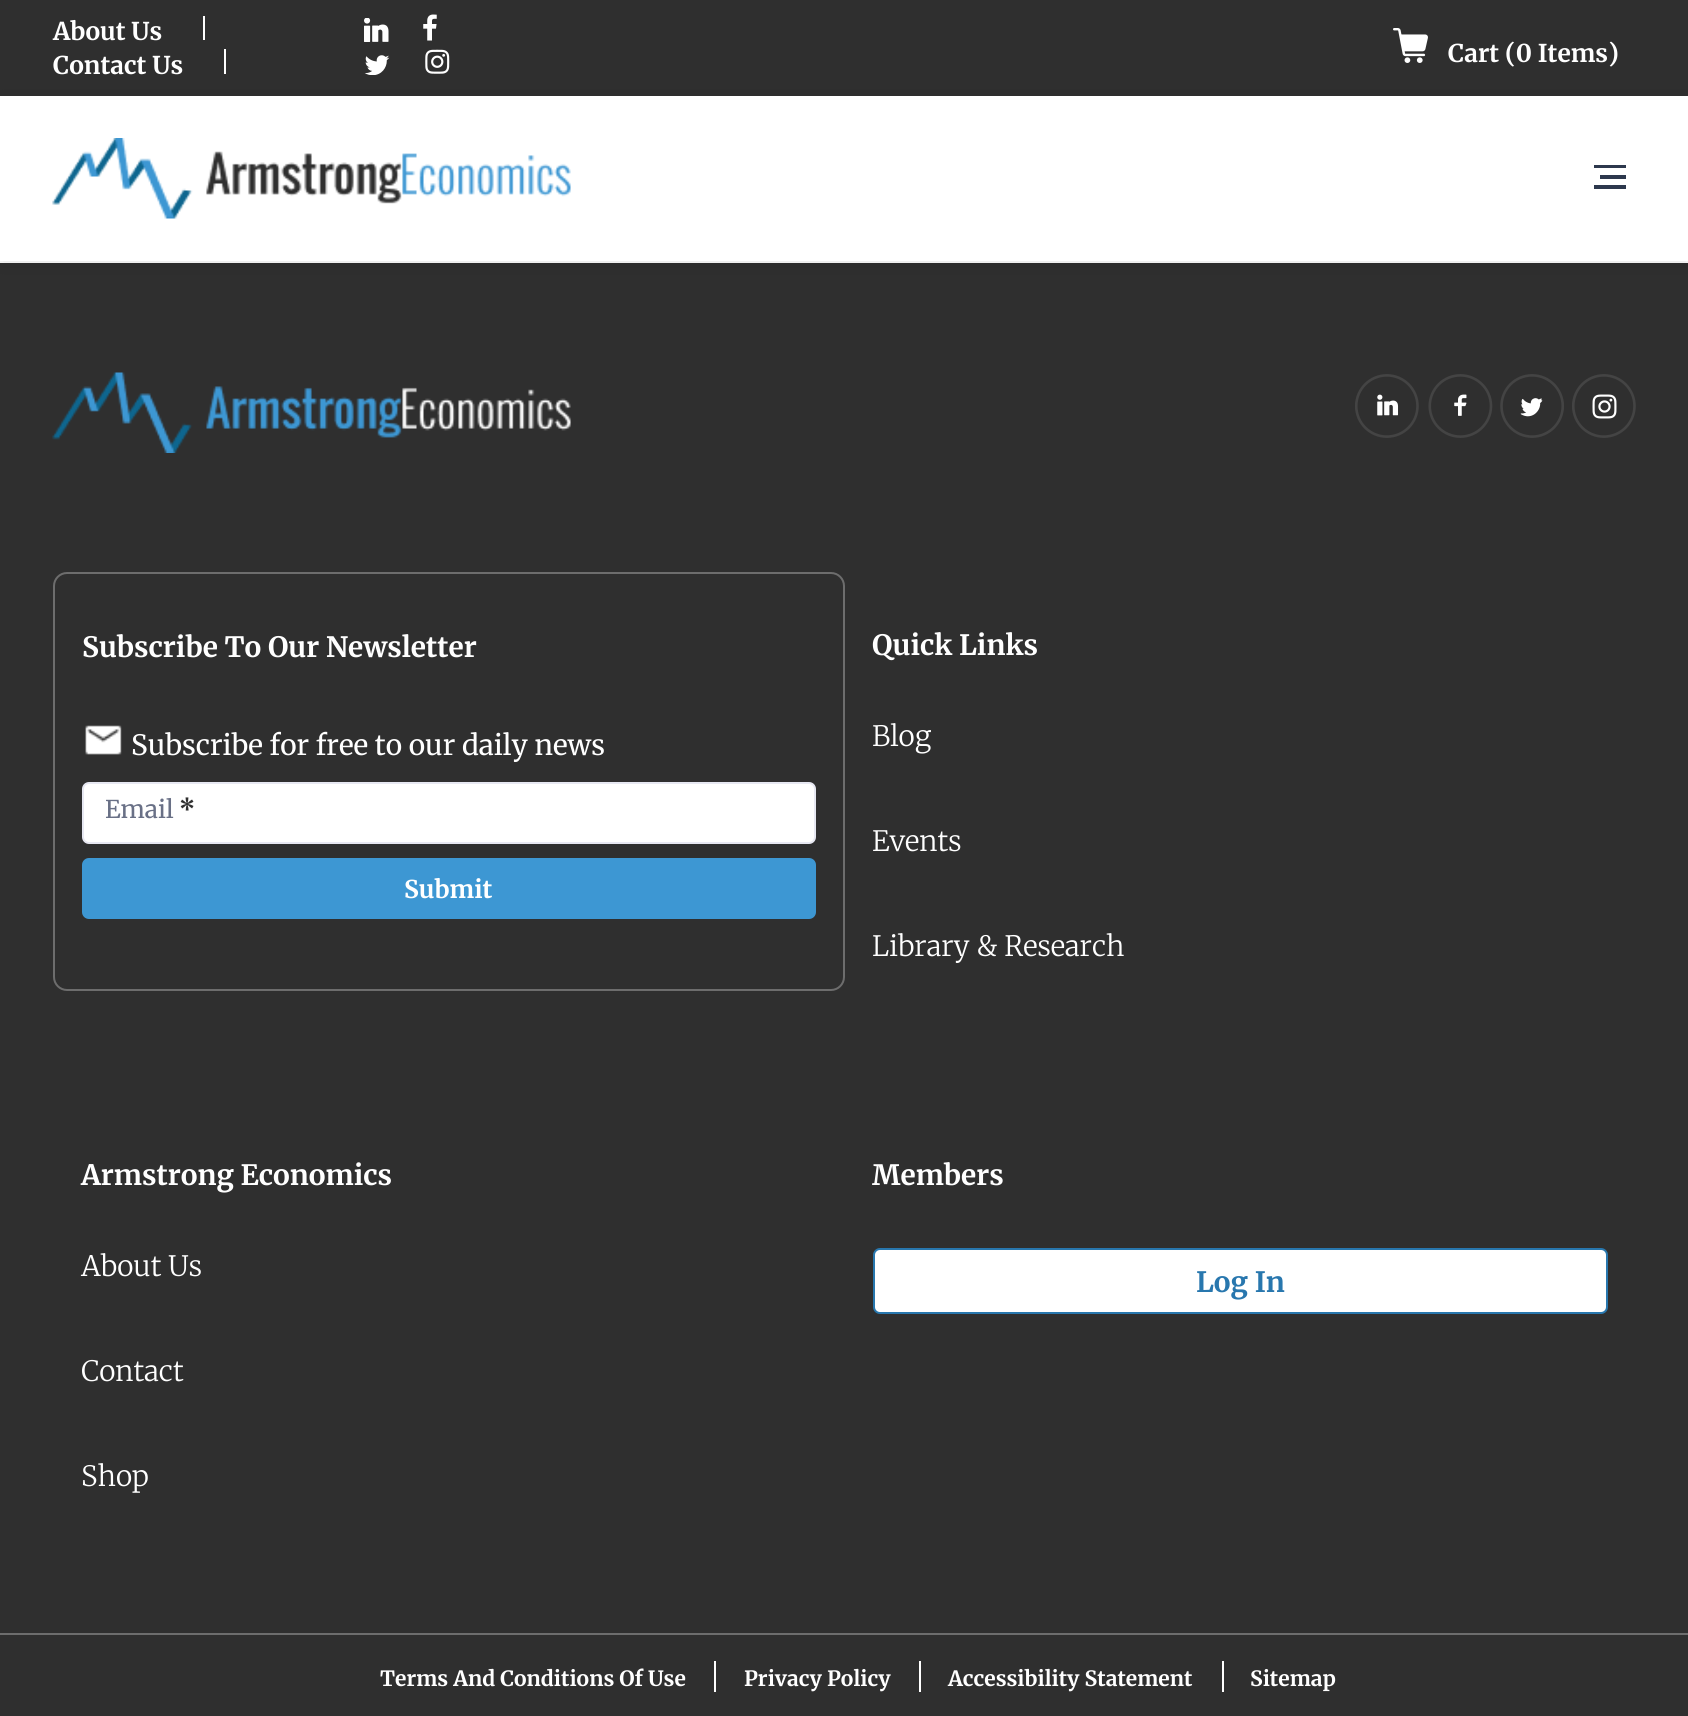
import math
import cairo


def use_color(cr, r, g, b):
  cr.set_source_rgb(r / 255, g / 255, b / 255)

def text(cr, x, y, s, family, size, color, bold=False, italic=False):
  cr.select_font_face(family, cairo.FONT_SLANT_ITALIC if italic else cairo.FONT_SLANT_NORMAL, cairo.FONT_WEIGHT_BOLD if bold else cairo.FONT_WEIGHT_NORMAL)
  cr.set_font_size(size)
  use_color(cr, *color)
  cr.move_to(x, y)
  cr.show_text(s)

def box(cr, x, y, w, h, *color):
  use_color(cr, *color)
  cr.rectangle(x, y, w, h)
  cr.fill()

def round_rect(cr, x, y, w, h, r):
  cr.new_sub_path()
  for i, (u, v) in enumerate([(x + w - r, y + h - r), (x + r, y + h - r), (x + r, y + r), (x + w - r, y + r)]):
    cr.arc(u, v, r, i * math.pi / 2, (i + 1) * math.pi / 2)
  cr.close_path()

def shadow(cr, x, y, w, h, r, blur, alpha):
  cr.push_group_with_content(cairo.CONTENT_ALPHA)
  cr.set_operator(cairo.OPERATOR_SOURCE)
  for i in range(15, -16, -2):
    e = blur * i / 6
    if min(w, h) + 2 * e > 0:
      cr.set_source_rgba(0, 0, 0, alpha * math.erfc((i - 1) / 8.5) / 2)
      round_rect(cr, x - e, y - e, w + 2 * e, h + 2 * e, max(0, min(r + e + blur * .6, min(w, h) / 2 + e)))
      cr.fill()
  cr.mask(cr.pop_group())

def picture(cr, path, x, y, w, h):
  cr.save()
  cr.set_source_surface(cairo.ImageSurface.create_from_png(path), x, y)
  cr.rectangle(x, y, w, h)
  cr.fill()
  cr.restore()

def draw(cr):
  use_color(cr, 47, 47, 47)
  cr.paint()
  box(cr, 203, 16, 2, 24, 255, 255, 255)
  box(cr, 0, 261, 1688, 2, 255, 255, 255)
  use_color(cr, 0, 0, 0)
  shadow(cr, 0, 100, 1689, 164, 0, 9, 0.1)
  box(cr, 224, 49, 2, 25, 255, 255, 255)
  picture(cr, "img_01.png", 364, 18, 25, 24)
  picture(cr, "img_02.png", 423, 14, 14, 27)
  picture(cr, "img_03.png", 364, 55, 26, 20)
  picture(cr, "img_04.png", 425, 49, 25, 25)
  picture(cr, "img_05.png", 1393, 28, 35, 35)
  box(cr, 0, 96, 1688, 165, 255, 255, 255)
  picture(cr, "img_06.png", 52, 138, 519, 81)
  box(cr, 1594, 165, 32, 3, 45, 56, 77)
  box(cr, 1600, 175, 26, 4, 45, 56, 77)
  box(cr, 1594, 185, 32, 4, 45, 56, 77)
  picture(cr, "img_07.png", 52, 372, 519, 81)
  picture(cr, "img_08.png", 1355, 374, 64, 64)
  picture(cr, "img_09.png", 1428, 374, 65, 64)
  picture(cr, "img_10.png", 1500, 374, 64, 64)
  picture(cr, "img_11.png", 1572, 374, 64, 64)
  round_rect(cr, 54, 573, 790, 417, 13)
  use_color(cr, 109, 109, 109)
  cr.stroke()
  picture(cr, "img_12.png", 85, 725, 37, 30)
  use_color(cr, 255, 255, 255)
  round_rect(cr, 83, 783, 732, 60, 6)
  cr.fill_preserve()
  use_color(cr, 231, 232, 242)
  cr.stroke()
  use_color(cr, 61, 151, 211)
  round_rect(cr, 82, 858, 734, 61, 7)
  cr.fill()
  use_color(cr, 255, 255, 255)
  round_rect(cr, 874, 1249, 733, 64, 6)
  cr.fill_preserve()
  use_color(cr, 40, 119, 174)
  cr.stroke()
  box(cr, 0, 1633, 1688, 2, 109, 109, 109)
  box(cr, 714, 1661, 2, 31, 255, 255, 255)
  box(cr, 919, 1661, 2, 31, 255, 255, 255)
  box(cr, 1222, 1661, 2, 31, 255, 255, 255)
  text(cr, 53, 40, "About Us", "Merriweather", 24.5, (255, 255, 255), bold=True)
  text(cr, 53, 74, "Contact Us", "Merriweather", 24.5, (255, 255, 255), bold=True)
  text(cr, 1448, 62, "Cart (0 Items)", "Merriweather", 24.5, (255, 255, 255), bold=True)
  text(cr, 82, 657, "Subscribe To Our Newsletter", "Merriweather", 28, (255, 255, 255), bold=True)
  text(cr, 131, 755, "Subscribe for free to our daily news", "Merriweather", 28, (255, 255, 255))
  text(cr, 105, 818, "Email", "Merriweather", 24.5, (105, 112, 134))
  text(cr, 179, 818, "*", "Merriweather", 24.5, (47, 47, 47), bold=True)
  text(cr, 404, 898, "Submit", "Merriweather", 24.5, (255, 255, 255), bold=True)
  text(cr, 872, 655, "Quick Links", "Merriweather", 28, (255, 255, 255), bold=True)
  text(cr, 872, 746, "Blog", "Merriweather Light", 28, (255, 255, 255))
  text(cr, 872, 851, "Events", "Merriweather Light", 28, (255, 255, 255))
  text(cr, 872, 956, "Library & Research", "Merriweather Light", 28, (255, 255, 255))
  text(cr, 81, 1185, "Armstrong Economics", "Merriweather", 28, (255, 255, 255), bold=True)
  text(cr, 81, 1276, "About Us", "Merriweather Light", 28, (255, 255, 255))
  text(cr, 81, 1381, "Contact", "Merriweather Light", 28, (255, 255, 255))
  text(cr, 81, 1486, "Shop", "Merriweather Light", 28, (255, 255, 255))
  text(cr, 872, 1185, "Members", "Merriweather", 28, (255, 255, 255), bold=True)
  text(cr, 1196, 1292, "Log In", "Merriweather", 28, (40, 119, 174), bold=True)
  text(cr, 380, 1686, "Terms And Conditions Of Use", "Merriweather", 21, (255, 255, 255), bold=True)
  text(cr, 744, 1686, "Privacy Policy", "Merriweather", 21, (255, 255, 255), bold=True)
  text(cr, 948, 1686, "Accessibility Statement", "Merriweather", 21, (255, 255, 255), bold=True)
  text(cr, 1250, 1686, "Sitemap", "Merriweather", 21, (255, 255, 255), bold=True)


surface = cairo.ImageSurface(cairo.FORMAT_RGB24, 1688, 1716)
cr = cairo.Context(surface)
options = cairo.FontOptions()
options.set_hint_metrics(cairo.HINT_METRICS_OFF)
options.set_hint_style(cairo.HINT_STYLE_NONE)
cr.set_font_options(options)
cr.set_miter_limit(4)
draw(cr)
surface.write_to_png("out.png")
